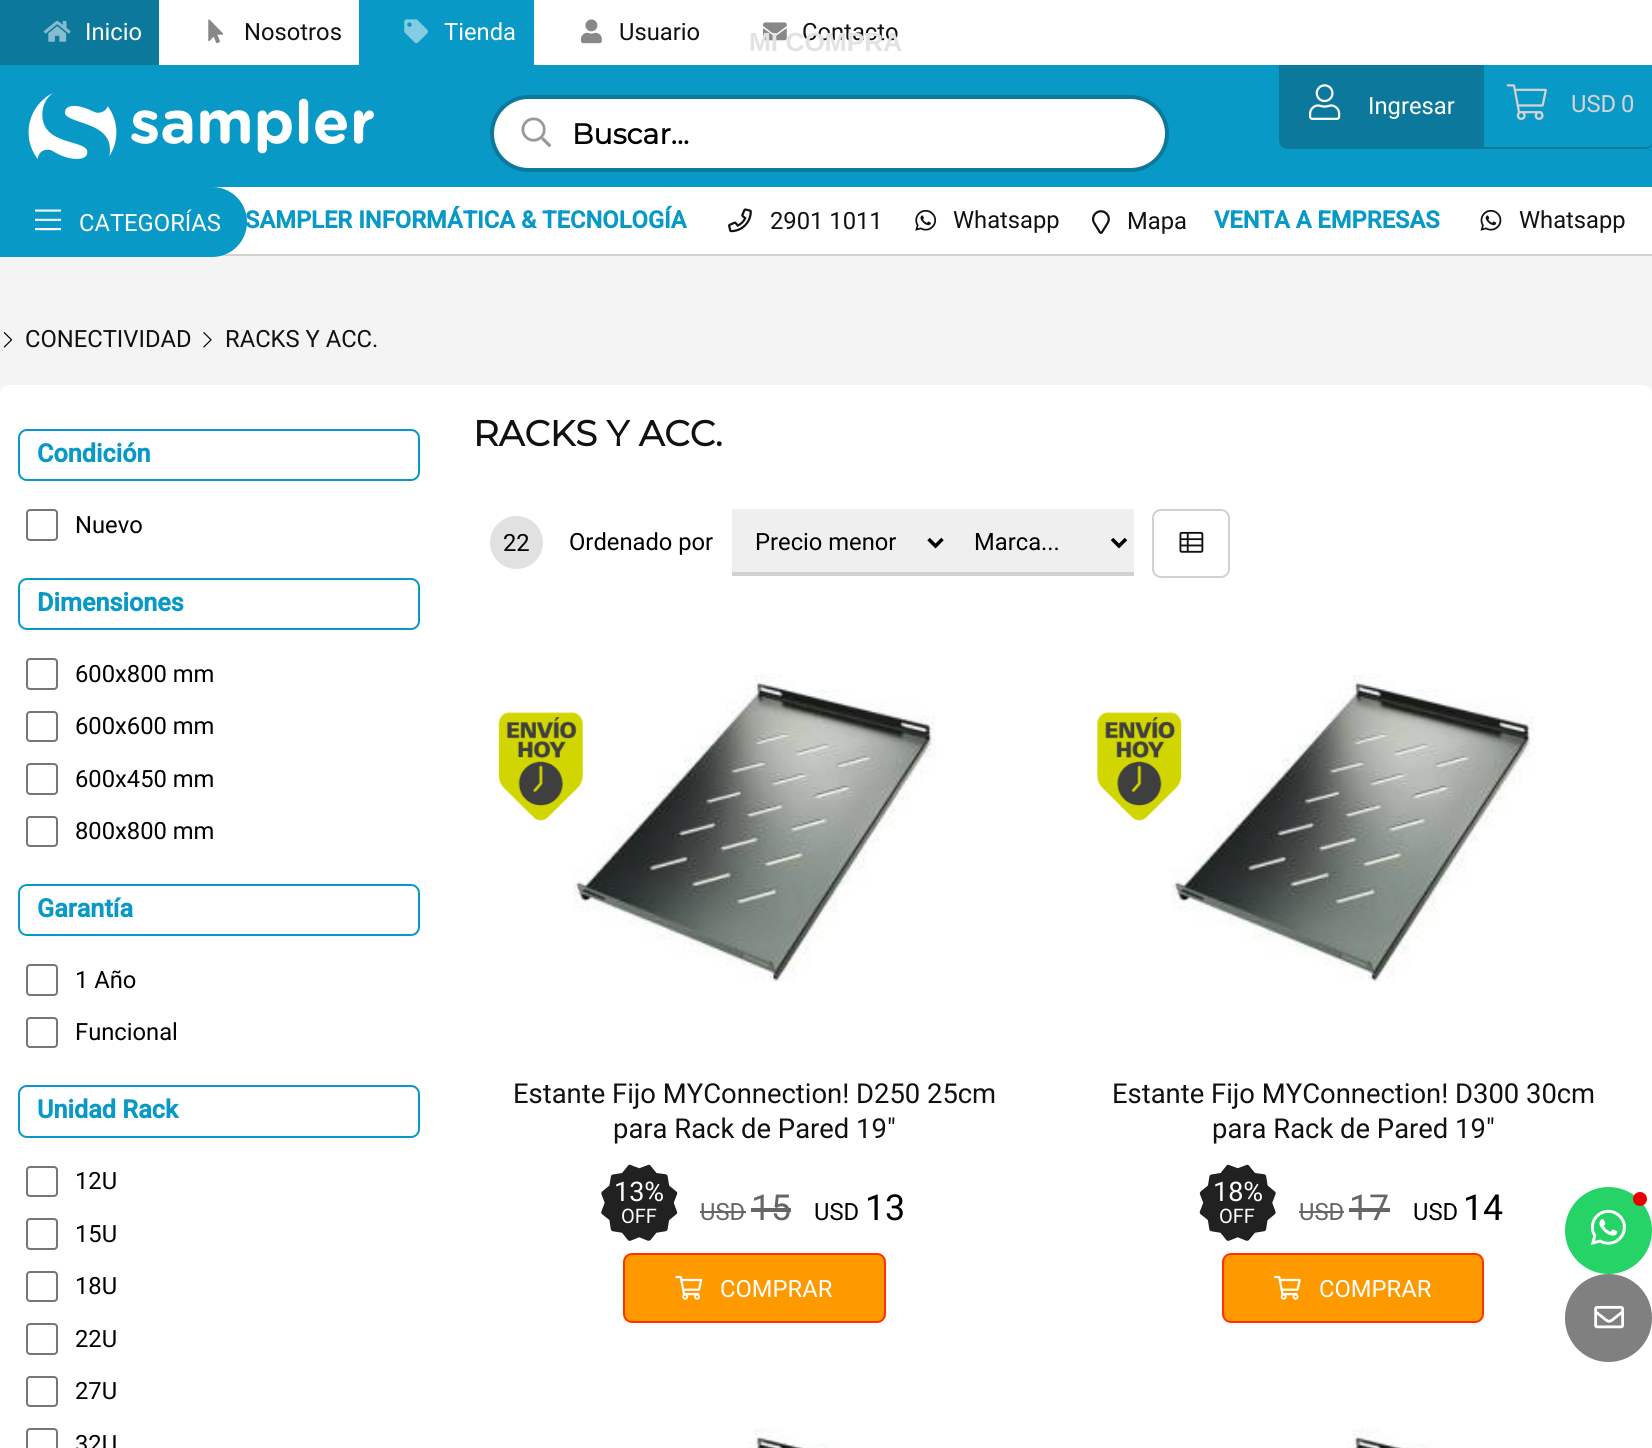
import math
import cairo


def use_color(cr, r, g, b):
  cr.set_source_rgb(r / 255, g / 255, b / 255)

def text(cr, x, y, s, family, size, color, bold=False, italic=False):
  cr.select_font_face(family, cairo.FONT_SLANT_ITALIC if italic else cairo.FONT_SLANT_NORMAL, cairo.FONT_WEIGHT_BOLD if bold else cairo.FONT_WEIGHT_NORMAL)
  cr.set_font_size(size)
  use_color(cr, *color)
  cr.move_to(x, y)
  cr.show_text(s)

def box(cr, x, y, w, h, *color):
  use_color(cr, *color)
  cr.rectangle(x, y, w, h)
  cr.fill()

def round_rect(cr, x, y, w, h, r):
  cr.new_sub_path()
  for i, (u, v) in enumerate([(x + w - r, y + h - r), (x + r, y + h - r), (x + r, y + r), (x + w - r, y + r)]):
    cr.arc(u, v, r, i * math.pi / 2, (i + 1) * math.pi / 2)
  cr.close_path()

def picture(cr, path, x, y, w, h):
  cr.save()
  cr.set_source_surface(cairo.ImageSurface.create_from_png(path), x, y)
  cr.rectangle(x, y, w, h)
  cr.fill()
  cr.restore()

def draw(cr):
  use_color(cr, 244, 244, 244)
  cr.paint()
  box(cr, 159, 0, 1493, 65, 255, 255, 255)
  box(cr, 0, 0, 159, 65, 12, 121, 156)
  picture(cr, "img_01.png", 43, 20, 28, 22)
  picture(cr, "img_02.png", 208, 19, 16, 25)
  box(cr, 359, 0, 175, 65, 9, 153, 199)
  picture(cr, "img_03.png", 404, 19, 24, 25)
  picture(cr, "img_04.png", 581, 19, 21, 25)
  picture(cr, "img_05.png", 763, 22, 24, 19)
  box(cr, 0, 65, 1652, 122, 9, 153, 199)
  box(cr, 220, 254, 1432, 2, 209, 209, 209)
  picture(cr, "img_06.png", 28, 93, 346, 66)
  use_color(cr, 12, 121, 156)
  cr.new_path()
  cr.move_to(1279, 65)
  cr.line_to(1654, 65)
  cr.line_to(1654, 140)
  cr.curve_to(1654, 145, 1650, 149, 1645, 149)
  cr.line_to(1288, 149)
  cr.curve_to(1283, 149, 1279, 145, 1279, 140)
  cr.close_path()
  cr.fill()
  box(cr, 1281, 145, 2, 2, 12, 121, 156)
  picture(cr, "img_07.png", 1309, 84, 32, 36)
  use_color(cr, 9, 153, 199)
  cr.new_path()
  cr.move_to(1482, 65)
  cr.line_to(1652, 65)
  cr.line_to(1652, 142)
  cr.curve_to(1652, 145, 1650, 147, 1647, 147)
  cr.line_to(1482, 147)
  cr.close_path()
  cr.fill()
  box(cr, 1482, 65, 2, 82, 12, 121, 156)
  picture(cr, "img_08.png", 1506, 84, 41, 36)
  use_color(cr, 255, 255, 255)
  round_rect(cr, 492, 97, 675, 73, 36.5)
  cr.fill_preserve()
  use_color(cr, 12, 121, 156)
  cr.set_line_width(4)
  cr.stroke()
  picture(cr, "img_09.png", 521, 117, 31, 31)
  box(cr, 212, 187, 1440, 67, 255, 255, 255)
  use_color(cr, 9, 153, 199)
  cr.new_path()
  cr.move_to(0, 187)
  cr.line_to(212, 187)
  cr.curve_to(231.5, 187, 247, 202.5, 247, 222)
  cr.curve_to(247, 241.5, 231.5, 257, 212, 257)
  cr.line_to(0, 257)
  cr.close_path()
  cr.fill()
  picture(cr, "img_10.png", 35, 209, 27, 22)
  picture(cr, "img_11.png", 728, 208, 24, 25)
  picture(cr, "img_12.png", 915, 209, 22, 22)
  picture(cr, "img_13.png", 1092, 210, 18, 24)
  picture(cr, "img_14.png", 1480, 209, 22, 22)
  picture(cr, "img_15.png", 3, 332, 10, 16)
  picture(cr, "img_16.png", 203, 332, 9, 16)
  use_color(cr, 255, 255, 255)
  round_rect(cr, 0, 385, 1652, 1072, 9)
  cr.fill()
  round_rect(cr, 19, 430, 400, 50, 8)
  use_color(cr, 9, 153, 199)
  cr.set_line_width(2)
  cr.stroke()
  round_rect(cr, 27, 510, 30, 30, 3)
  use_color(cr, 118, 118, 118)
  cr.stroke()
  round_rect(cr, 19, 579, 400, 50, 8)
  use_color(cr, 9, 153, 199)
  cr.stroke()
  round_rect(cr, 27, 659, 30, 30, 3)
  use_color(cr, 118, 118, 118)
  cr.stroke()
  round_rect(cr, 27, 712, 30, 29, 3)
  cr.stroke()
  round_rect(cr, 27, 764, 30, 30, 3)
  cr.stroke()
  round_rect(cr, 27, 817, 30, 29, 3)
  cr.stroke()
  round_rect(cr, 19, 885, 400, 50, 8)
  use_color(cr, 9, 153, 199)
  cr.stroke()
  round_rect(cr, 27, 965, 30, 30, 3)
  use_color(cr, 118, 118, 118)
  cr.stroke()
  round_rect(cr, 27, 1018, 30, 29, 3)
  cr.stroke()
  round_rect(cr, 19, 1086, 400, 51, 8)
  use_color(cr, 9, 153, 199)
  cr.stroke()
  round_rect(cr, 27, 1167, 30, 29, 3)
  use_color(cr, 118, 118, 118)
  cr.stroke()
  round_rect(cr, 27, 1219, 30, 30, 3)
  cr.stroke()
  round_rect(cr, 27, 1272, 30, 29, 3)
  cr.stroke()
  round_rect(cr, 27, 1324, 30, 30, 3)
  cr.stroke()
  round_rect(cr, 27, 1377, 30, 29, 3)
  cr.stroke()
  round_rect(cr, 27, 1429, 30, 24, 3)
  cr.stroke()
  use_color(cr, 225, 225, 225)
  cr.arc(516.5, 542.5, 26.5, 0, 2 * math.pi)
  cr.fill()
  box(cr, 732, 509, 402, 63, 239, 239, 239)
  cr.new_path()
  cr.move_to(928.5, 539)
  cr.line_to(935.5, 546)
  cr.line_to(942.5, 539)
  use_color(cr, 0, 0, 0)
  cr.set_line_width(3.5)
  cr.stroke()
  box(cr, 732, 572, 402, 4, 209, 209, 209)
  cr.new_path()
  cr.move_to(1112, 539)
  cr.line_to(1119, 546)
  cr.line_to(1126, 539)
  use_color(cr, 0, 0, 0)
  cr.stroke()
  round_rect(cr, 1153, 510, 76, 67, 8)
  use_color(cr, 209, 209, 209)
  cr.set_line_width(2)
  cr.stroke()
  picture(cr, "img_17.png", 1179, 531, 25, 22)
  picture(cr, "img_19.png", 572, 674, 365, 308)
  picture(cr, "img_18.png", 498, 712, 85, 109)
  picture(cr, "img_20.png", 601, 1164, 77, 77)
  box(cr, 700, 1211, 46, 2, 102, 102, 102)
  box(cr, 751, 1208, 40, 4, 102, 102, 102)
  use_color(cr, 255, 153, 0)
  round_rect(cr, 624, 1254, 261, 68, 8)
  cr.fill_preserve()
  use_color(cr, 255, 51, 0)
  cr.stroke()
  picture(cr, "img_21.png", 675, 1275, 28, 25)
  picture(cr, "img_23.png", 1170, 674, 365, 308)
  picture(cr, "img_22.png", 1097, 712, 85, 109)
  picture(cr, "img_24.png", 1199, 1164, 77, 77)
  box(cr, 1299, 1211, 45, 2, 102, 102, 102)
  box(cr, 1349, 1208, 41, 4, 102, 102, 102)
  use_color(cr, 255, 153, 0)
  round_rect(cr, 1223, 1254, 260, 68, 8)
  cr.fill_preserve()
  use_color(cr, 255, 51, 0)
  cr.stroke()
  picture(cr, "img_25.png", 1274, 1275, 27, 25)
  picture(cr, "img_26.png", 748, 1428, 90, 20)
  picture(cr, "img_27.png", 1347, 1428, 90, 20)
  use_color(cr, 37, 211, 102)
  cr.arc(1608.5, 1230.5, 43.5, 0, 2 * math.pi)
  cr.fill()
  use_color(cr, 232, 0, 0)
  cr.arc(1640, 1199, 7, 0, 2 * math.pi)
  cr.fill()
  picture(cr, "img_28.png", 1590, 1209, 36, 36)
  use_color(cr, 128, 128, 128)
  round_rect(cr, 1565, 1274, 87, 88, 43.5)
  cr.fill()
  picture(cr, "img_29.png", 1594, 1305, 30, 24)
  text(cr, 85, 40, "Inicio", "Roboto", 23.75, (255, 255, 255))
  text(cr, 244, 40, "Nosotros", "Roboto", 23.75, (17, 17, 17))
  text(cr, 444, 40, "Tienda", "Roboto", 23.75, (255, 255, 255))
  text(cr, 619, 40, "Usuario", "Roboto", 23.75, (17, 17, 17))
  text(cr, 802, 40, "Contacto", "Roboto", 23.75, (17, 17, 17))
  text(cr, 749, 51, "MI COMPRA", "Liberation Sans", 26.25, (226, 226, 226), bold=True)
  text(cr, 1368, 114, "Ingresar", "Roboto", 23.75, (255, 255, 255))
  text(cr, 1571, 112, "USD", "Roboto", 23.75, (212, 212, 212))
  text(cr, 1621, 112, "0", "Roboto", 23.75, (212, 212, 212))
  text(cr, 572, 144, "Buscar...", "Montserrat", 28.5, (0, 0, 0), bold=True)
  text(cr, 79, 231, "CATEGORÍAS", "Roboto", 23.75, (255, 255, 255))
  text(cr, 245, 228, "SAMPLER INFORMÁTICA & TECNOLOGÍA", "Roboto", 23.75, (9, 153, 199), bold=True)
  text(cr, 770, 229, "2901 1011", "Roboto", 23.75, (17, 17, 17))
  text(cr, 953, 228, "Whatsapp", "Roboto", 23.75, (17, 17, 17))
  text(cr, 1127, 229, "Mapa", "Roboto", 23.75, (17, 17, 17))
  text(cr, 1214, 228, "VENTA A EMPRESAS", "Roboto", 23.75, (9, 153, 199), bold=True)
  text(cr, 1519, 228, "Whatsapp", "Roboto", 23.75, (17, 17, 17))
  text(cr, 25, 347, "CONECTIVIDAD", "Roboto", 23.75, (17, 17, 17))
  text(cr, 225, 347, "RACKS Y ACC.", "Roboto", 23.75, (17, 17, 17))
  text(cr, 37, 462, "Condición", "Roboto", 25.25, (9, 153, 199), bold=True)
  text(cr, 75, 533, "Nuevo", "Roboto", 23.75, (0, 0, 0))
  text(cr, 37, 611, "Dimensiones", "Roboto", 25.25, (9, 153, 199), bold=True)
  text(cr, 75, 682, "600x800 mm", "Roboto", 23.75, (0, 0, 0))
  text(cr, 75, 734, "600x600 mm", "Roboto", 23.75, (0, 0, 0))
  text(cr, 75, 787, "600x450 mm", "Roboto", 23.75, (0, 0, 0))
  text(cr, 75, 839, "800x800 mm", "Roboto", 23.75, (0, 0, 0))
  text(cr, 37, 917, "Garantía", "Roboto", 25.25, (9, 153, 199), bold=True)
  text(cr, 75, 988, "1 Año", "Roboto", 23.75, (0, 0, 0))
  text(cr, 75, 1040, "Funcional", "Roboto", 23.75, (0, 0, 0))
  text(cr, 37, 1118, "Unidad Rack", "Roboto", 25.25, (9, 153, 199), bold=True)
  text(cr, 75, 1189, "12U", "Roboto", 23.75, (0, 0, 0))
  text(cr, 75, 1242, "15U", "Roboto", 23.75, (0, 0, 0))
  text(cr, 75, 1294, "18U", "Roboto", 23.75, (0, 0, 0))
  text(cr, 75, 1347, "22U", "Roboto", 23.75, (0, 0, 0))
  text(cr, 75, 1399, "27U", "Roboto", 23.75, (0, 0, 0))
  text(cr, 75, 1452, "32U", "Roboto", 23.75, (0, 0, 0))
  text(cr, 473, 446, "RACKS Y ACC.", "Montserrat", 35.75, (17, 17, 17), bold=True)
  text(cr, 503, 551, "22", "Roboto", 23.75, (0, 0, 0))
  text(cr, 569, 550, "Ordenado por", "Roboto", 23.75, (0, 0, 0))
  text(cr, 755, 550, "Precio menor", "Roboto", 23.75, (0, 0, 0))
  text(cr, 974, 550, "Marca...", "Roboto", 23.75, (0, 0, 0))
  text(cr, 513, 1103, "Estante Fijo MYConnection! D250 25cm", "Roboto", 27.4, (17, 17, 17))
  text(cr, 613, 1138, "para Rack de Pared 19\"", "Roboto", 27.4, (17, 17, 17))
  text(cr, 614, 1201, "13%", "Roboto", 27, (255, 255, 255))
  text(cr, 621, 1223, "OFF", "Roboto", 20, (255, 255, 255))
  text(cr, 700, 1220, "USD", "Roboto", 23.75, (102, 102, 102))
  text(cr, 751, 1220, "15", "Roboto", 35.75, (102, 102, 102))
  text(cr, 814, 1220, "USD", "Roboto", 23.75, (0, 0, 0))
  text(cr, 865, 1220, "13", "Roboto", 35.75, (0, 0, 0))
  text(cr, 720, 1297, "COMPRAR", "Roboto", 23.75, (255, 255, 255))
  text(cr, 1112, 1103, "Estante Fijo MYConnection! D300 30cm", "Roboto", 27.4, (17, 17, 17))
  text(cr, 1212, 1138, "para Rack de Pared 19\"", "Roboto", 27.4, (17, 17, 17))
  text(cr, 1213, 1201, "18%", "Roboto", 27, (255, 255, 255))
  text(cr, 1219, 1223, "OFF", "Roboto", 20, (255, 255, 255))
  text(cr, 1299, 1220, "USD", "Roboto", 23.75, (102, 102, 102))
  text(cr, 1349, 1220, "17", "Roboto", 35.75, (102, 102, 102))
  text(cr, 1413, 1220, "USD", "Roboto", 23.75, (0, 0, 0))
  text(cr, 1463, 1220, "14", "Roboto", 35.75, (0, 0, 0))
  text(cr, 1319, 1297, "COMPRAR", "Roboto", 23.75, (255, 255, 255))


surface = cairo.ImageSurface(cairo.FORMAT_RGB24, 1652, 1448)
cr = cairo.Context(surface)
options = cairo.FontOptions()
options.set_hint_metrics(cairo.HINT_METRICS_OFF)
options.set_hint_style(cairo.HINT_STYLE_NONE)
cr.set_font_options(options)
cr.set_miter_limit(4)
draw(cr)
surface.write_to_png("out.png")
